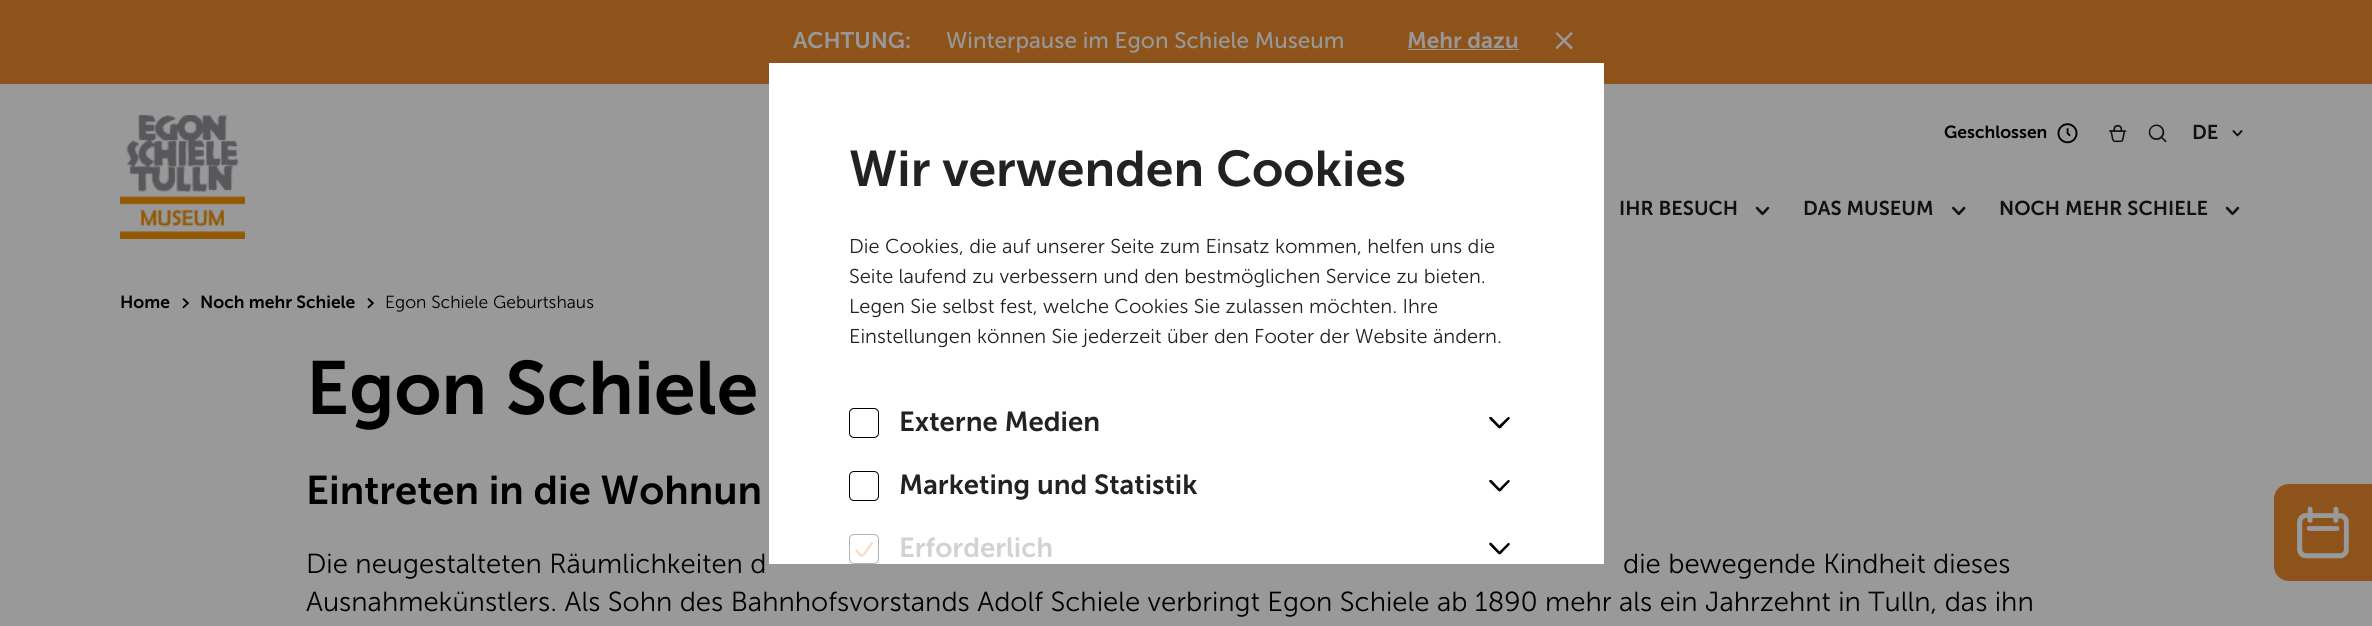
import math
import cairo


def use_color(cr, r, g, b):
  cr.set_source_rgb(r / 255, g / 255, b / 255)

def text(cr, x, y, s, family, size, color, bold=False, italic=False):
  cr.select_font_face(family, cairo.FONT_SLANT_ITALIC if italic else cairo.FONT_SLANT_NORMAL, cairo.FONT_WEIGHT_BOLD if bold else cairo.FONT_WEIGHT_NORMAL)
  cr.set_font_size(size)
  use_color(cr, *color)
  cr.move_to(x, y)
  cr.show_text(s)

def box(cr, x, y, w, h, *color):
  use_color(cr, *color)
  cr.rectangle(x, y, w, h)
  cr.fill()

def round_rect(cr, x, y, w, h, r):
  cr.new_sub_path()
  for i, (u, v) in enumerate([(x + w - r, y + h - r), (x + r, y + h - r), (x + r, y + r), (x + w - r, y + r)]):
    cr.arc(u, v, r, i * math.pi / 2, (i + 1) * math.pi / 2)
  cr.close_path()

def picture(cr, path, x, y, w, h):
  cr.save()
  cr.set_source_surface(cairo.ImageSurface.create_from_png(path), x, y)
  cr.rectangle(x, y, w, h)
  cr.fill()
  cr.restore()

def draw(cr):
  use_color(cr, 153, 153, 153)
  cr.paint()
  box(cr, 0, 0, 2372, 84, 141, 83, 27)
  box(cr, 1408, 49, 111, 1, 152, 152, 152)
  cr.new_path()
  cr.move_to(1557, 32)
  cr.line_to(1573, 47.5)
  cr.line_to(1571, 49.5)
  cr.line_to(1555.5, 33.5)
  cr.close_path()
  cr.fill()
  cr.new_path()
  cr.move_to(1555.5, 47.5)
  cr.line_to(1571, 32)
  cr.line_to(1573, 33.5)
  cr.line_to(1557, 49.5)
  cr.close_path()
  cr.fill()
  picture(cr, "img_01.png", 2057, 123, 21, 21)
  picture(cr, "img_02.png", 2109, 124, 18, 19)
  picture(cr, "img_03.png", 2148, 124, 19, 19)
  picture(cr, "img_04.png", 2232, 130, 11, 7)
  picture(cr, "img_05.png", 120, 115, 125, 124)
  picture(cr, "img_06.png", 1755, 206, 15, 10)
  picture(cr, "img_07.png", 1952, 206, 14, 10)
  picture(cr, "img_06.png", 2225, 206, 15, 10)
  use_color(cr, 141, 83, 27)
  cr.new_path()
  cr.move_to(2289, 484)
  cr.line_to(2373, 484)
  cr.line_to(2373, 581)
  cr.line_to(2289, 581)
  cr.curve_to(2280.5, 581, 2274, 574.5, 2274, 566)
  cr.line_to(2274, 499)
  cr.curve_to(2274, 490.5, 2280.5, 484, 2289, 484)
  cr.close_path()
  cr.fill()
  picture(cr, "img_08.png", 2297, 506, 52, 53)
  picture(cr, "img_09.png", 182, 298, 7, 11)
  picture(cr, "img_09.png", 367, 298, 7, 11)
  box(cr, 769, 63, 835, 501, 255, 255, 255)
  round_rect(cr, 849.5, 408.5, 29, 29, 4.5)
  use_color(cr, 0, 0, 0)
  cr.set_line_width(1)
  cr.stroke()
  cr.new_path()
  cr.move_to(1491.5, 417)
  cr.line_to(1500.5, 426.5)
  cr.line_to(1500.5, 427.5)
  cr.curve_to(1499.5, 429.5, 1497.5, 427, 1497, 426.5)
  cr.line_to(1492.5, 422)
  cr.curve_to(1492, 421.5, 1488, 418.5, 1489.5, 417)
  cr.curve_to(1490, 417, 1491, 417, 1491.5, 417)
  cr.close_path()
  cr.fill()
  cr.new_path()
  cr.move_to(1498.5, 426)
  cr.line_to(1508, 417)
  cr.line_to(1509, 417)
  cr.curve_to(1511, 418, 1508.5, 420, 1508, 420.5)
  cr.line_to(1503.5, 425)
  cr.curve_to(1503, 425.5, 1500.5, 429.5, 1499, 428)
  cr.curve_to(1498.5, 427.5, 1498.5, 426.5, 1498.5, 426)
  cr.close_path()
  cr.fill()
  round_rect(cr, 849.5, 471.5, 29, 29, 4.5)
  cr.stroke()
  cr.new_path()
  cr.move_to(1491.5, 480)
  cr.line_to(1500.5, 489.5)
  cr.line_to(1500.5, 490.5)
  cr.curve_to(1499.5, 492.5, 1497.5, 490, 1497, 489.5)
  cr.line_to(1492.5, 485)
  cr.curve_to(1492, 484, 1488, 481.5, 1489.5, 480)
  cr.curve_to(1490, 480, 1491, 480, 1491.5, 480)
  cr.close_path()
  cr.fill()
  cr.new_path()
  cr.move_to(1499, 489)
  cr.line_to(1508, 480)
  cr.line_to(1509, 480)
  cr.curve_to(1511, 481, 1508.5, 483, 1508, 483.5)
  cr.line_to(1503.5, 488)
  cr.curve_to(1503, 488.5, 1500.5, 492.5, 1499, 491)
  cr.curve_to(1498.5, 490.5, 1498.5, 489.5, 1499, 489)
  cr.close_path()
  cr.fill()
  round_rect(cr, 849.5, 534.5, 29, 29, 4.5)
  use_color(cr, 179, 179, 179)
  cr.stroke()
  cr.new_path()
  cr.move_to(856.5, 550.5)
  cr.curve_to(860, 555, 861, 558.5, 865.5, 552.5)
  cr.line_to(872, 543)
  use_color(cr, 249, 220, 192)
  cr.set_line_width(2.3)
  cr.set_line_cap(cairo.LINE_CAP_ROUND)
  cr.set_line_join(cairo.LINE_JOIN_ROUND)
  cr.stroke()
  use_color(cr, 0, 0, 0)
  cr.new_path()
  cr.move_to(1491.5, 543)
  cr.line_to(1500.5, 552.5)
  cr.line_to(1500.5, 553.5)
  cr.curve_to(1499.5, 555.5, 1497.5, 553, 1497, 552.5)
  cr.line_to(1492.5, 548)
  cr.curve_to(1492, 547, 1488, 544.5, 1489.5, 543)
  cr.curve_to(1490, 542.5, 1491, 542.5, 1491.5, 543)
  cr.close_path()
  cr.fill()
  cr.new_path()
  cr.move_to(1499, 552)
  cr.line_to(1508, 543)
  cr.line_to(1509, 543)
  cr.curve_to(1511, 544, 1508.5, 546, 1508, 546.5)
  cr.line_to(1503.5, 551)
  cr.curve_to(1503, 551.5, 1500.5, 555.5, 1499, 554)
  cr.curve_to(1498.5, 553.5, 1498.5, 552.5, 1499, 552)
  cr.close_path()
  cr.fill()
  text(cr, 793, 48, "ACHTUNG:", "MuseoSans", 22.5, (152, 152, 152))
  text(cr, 946, 48, "Winterpause im Egon Schiele Museum", "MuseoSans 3", 22.5, (152, 152, 152))
  text(cr, 1407, 48, "Mehr dazu", "MuseoSans", 22.5, (152, 152, 152))
  text(cr, 1944, 138, "Geschlossen", "MuseoSans", 17.5, (0, 0, 0))
  text(cr, 2192, 139, "DE", "MuseoSans", 20, (17, 17, 17))
  text(cr, 1619, 215, "IHR BESUCH", "MuseoSans", 20, (17, 17, 17))
  text(cr, 1803, 215, "DAS MUSEUM", "MuseoSans", 20, (17, 17, 17))
  text(cr, 1999, 215, "NOCH MEHR SCHIELE", "MuseoSans", 20, (17, 17, 17))
  text(cr, 120, 308, "Home", "MuseoSans", 17.5, (0, 0, 0))
  text(cr, 200, 308, "Noch mehr Schiele", "MuseoSans", 17.5, (0, 0, 0))
  text(cr, 385, 308, "Egon Schiele Geburtshaus", "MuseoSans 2", 17.5, (0, 0, 0))
  text(cr, 306, 414, "Egon Schiele", "MuseoSans", 75, (0, 0, 0))
  text(cr, 306, 504, "Eintreten in die Wohnun", "MuseoSans", 40, (0, 0, 0))
  text(cr, 306, 573, "Die neugestalteten Räumlichkeiten d", "MuseoSans 2", 27.5, (0, 0, 0))
  text(cr, 1623, 573, "die bewegende Kindheit dieses", "MuseoSans 2", 27.5, (0, 0, 0))
  text(cr, 306, 611, "Ausnahmekünstlers. Als Sohn des Bahnhofsvorstands Adolf Schiele verbringt Egon Schiele ab 1890 mehr als ein Jahrzehnt in Tulln, das ihn", "MuseoSans 2", 27.5, (0, 0, 0))
  text(cr, 849, 186, "Wir verwenden Cookies", "MuseoSans", 50, (34, 34, 34))
  text(cr, 849, 253, "Die Cookies, die auf unserer Seite zum Einsatz kommen, helfen uns die", "MuseoSans 2", 20, (34, 34, 34))
  text(cr, 849, 283, "Seite laufend zu verbessern und den bestmöglichen Service zu bieten.", "MuseoSans 2", 20, (34, 34, 34))
  text(cr, 849, 313, "Legen Sie selbst fest, welche Cookies Sie zulassen möchten. Ihre", "MuseoSans 2", 20, (34, 34, 34))
  text(cr, 849, 343, "Einstellungen können Sie jederzeit über den Footer der Website ändern.", "MuseoSans 2", 20, (34, 34, 34))
  text(cr, 899, 431, "Externe Medien", "MuseoSans", 27.5, (34, 34, 34))
  text(cr, 899, 494, "Marketing und Statistik", "MuseoSans", 27.5, (34, 34, 34))
  text(cr, 899, 557, "Erforderlich", "MuseoSans", 27.5, (210, 210, 210))


surface = cairo.ImageSurface(cairo.FORMAT_RGB24, 2372, 626)
cr = cairo.Context(surface)
options = cairo.FontOptions()
options.set_hint_metrics(cairo.HINT_METRICS_OFF)
options.set_hint_style(cairo.HINT_STYLE_NONE)
cr.set_font_options(options)
cr.set_miter_limit(4)
draw(cr)
surface.write_to_png("out.png")
